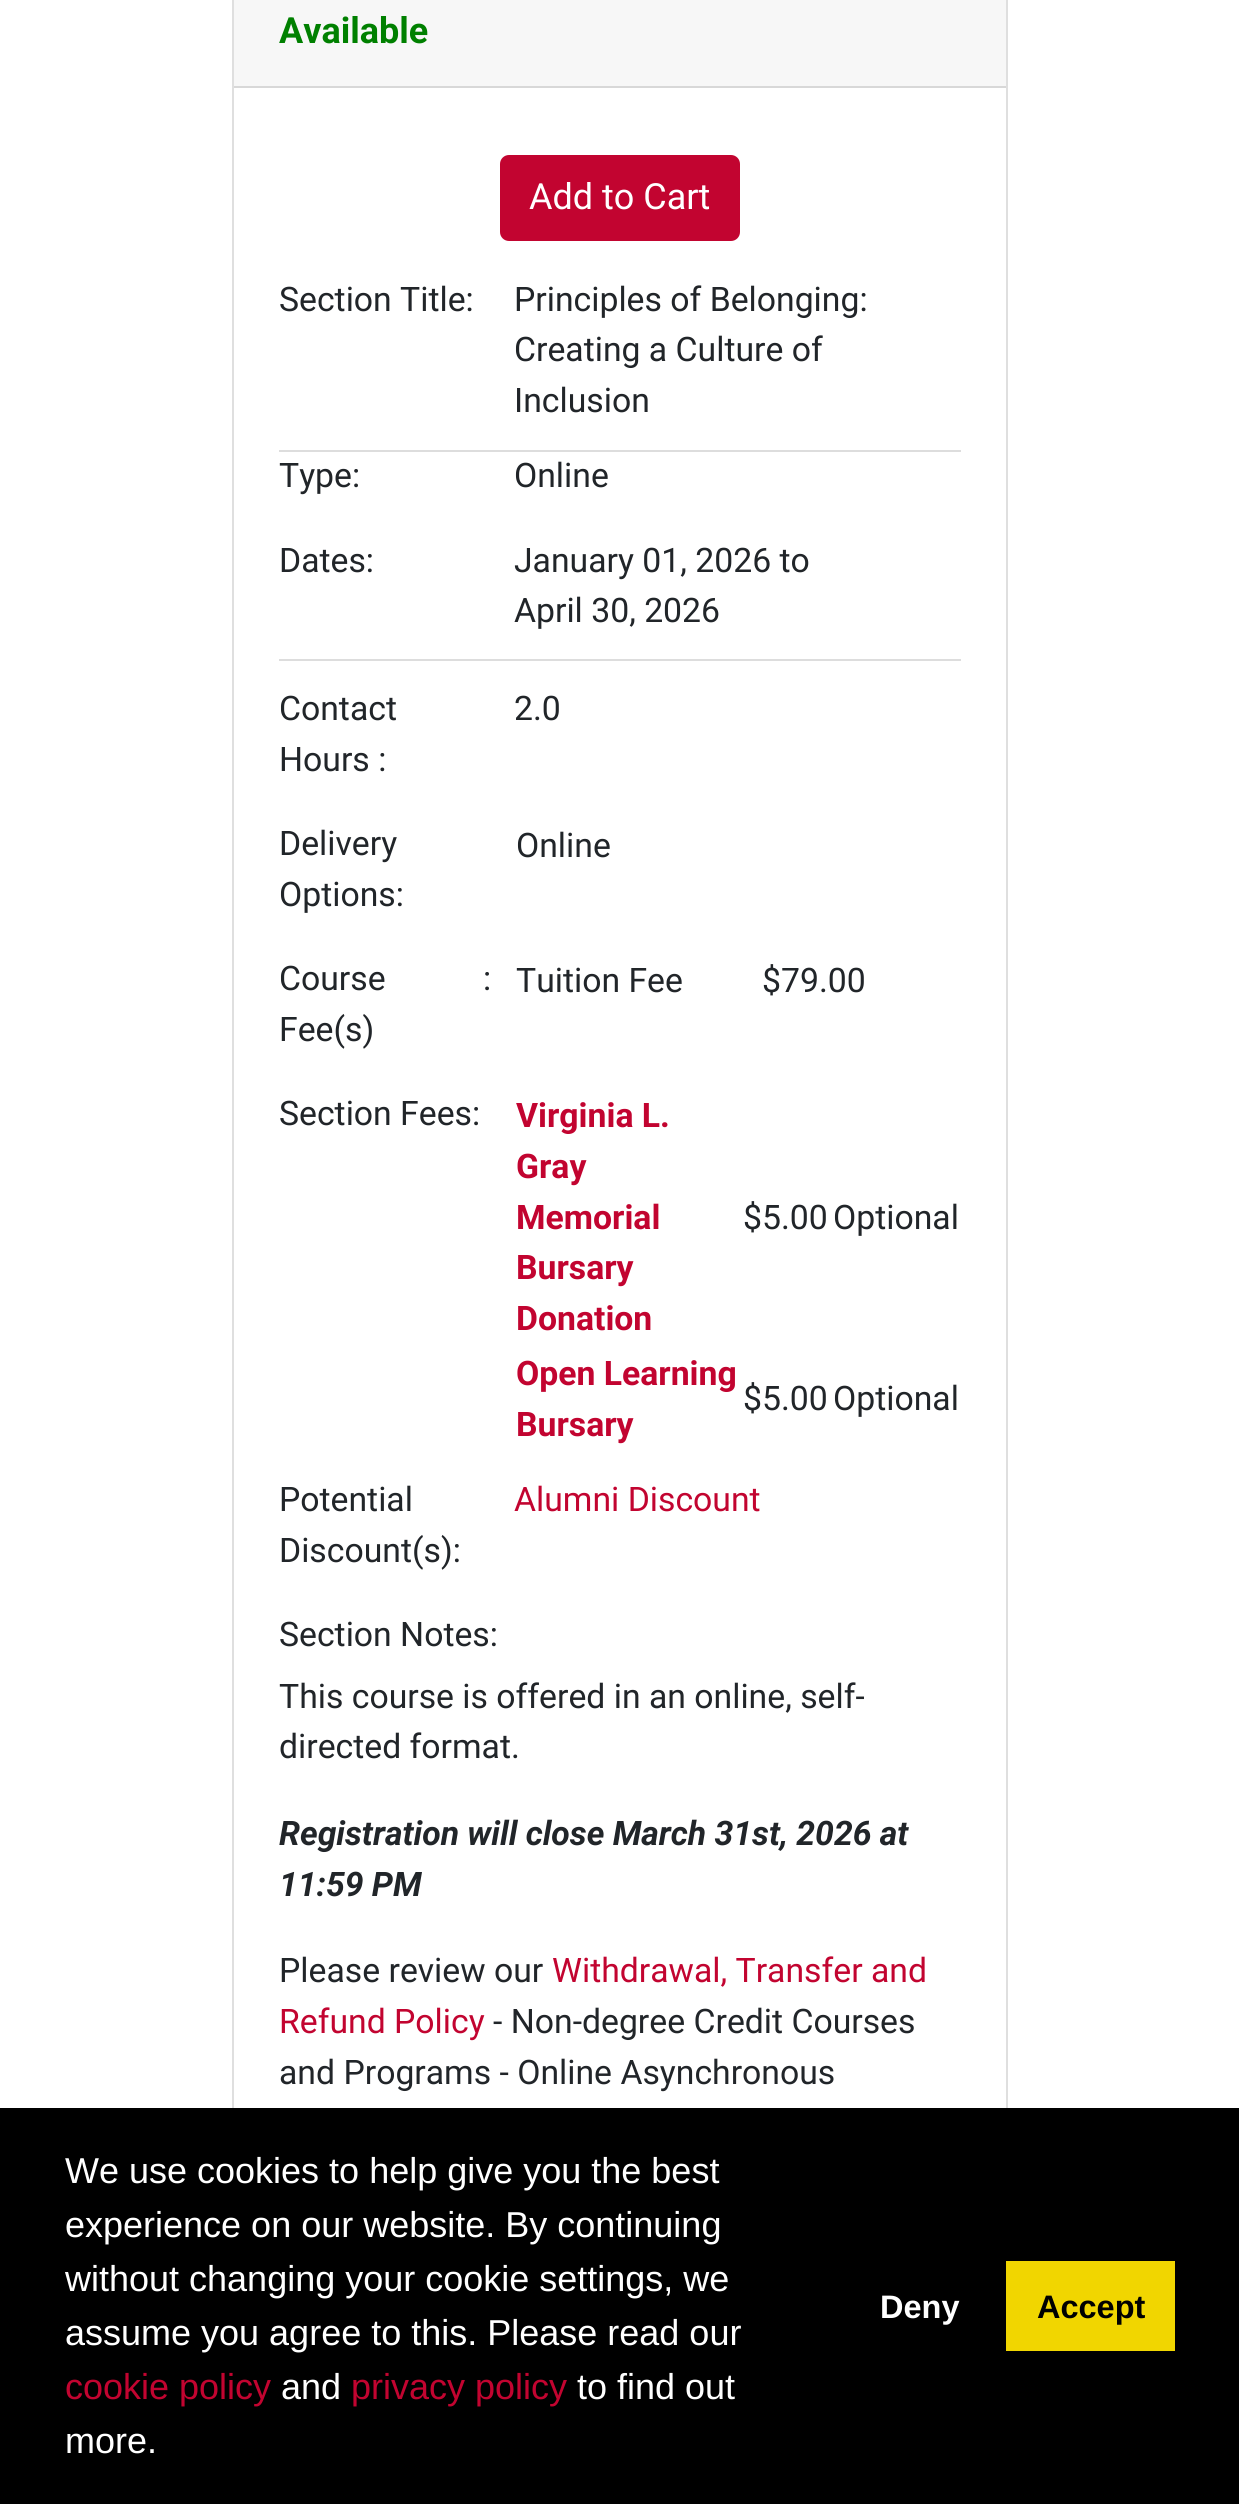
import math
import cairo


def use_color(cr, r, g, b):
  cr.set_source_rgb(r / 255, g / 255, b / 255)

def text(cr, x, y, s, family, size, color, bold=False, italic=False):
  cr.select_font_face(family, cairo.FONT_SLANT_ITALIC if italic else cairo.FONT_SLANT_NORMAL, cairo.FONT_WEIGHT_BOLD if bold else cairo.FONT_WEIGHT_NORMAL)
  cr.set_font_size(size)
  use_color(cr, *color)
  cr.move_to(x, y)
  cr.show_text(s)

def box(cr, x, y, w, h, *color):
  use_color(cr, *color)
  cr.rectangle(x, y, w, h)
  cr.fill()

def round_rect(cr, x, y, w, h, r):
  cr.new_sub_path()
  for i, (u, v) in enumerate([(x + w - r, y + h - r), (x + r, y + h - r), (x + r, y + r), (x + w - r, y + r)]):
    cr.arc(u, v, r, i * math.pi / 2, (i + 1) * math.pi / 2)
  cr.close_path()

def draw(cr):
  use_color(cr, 255, 255, 255)
  cr.paint()
  cr.rectangle(233, -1, 774, 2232)
  use_color(cr, 223, 223, 223)
  cr.stroke()
  box(cr, 234, 0, 772, 86, 247, 247, 247)
  box(cr, 234, 86, 772, 2, 216, 216, 216)
  use_color(cr, 194, 4, 48)
  round_rect(cr, 501, 156, 238, 84, 8)
  cr.fill_preserve()
  cr.stroke()
  box(cr, 279, 450, 682, 2, 221, 221, 221)
  box(cr, 279, 659, 682, 2, 221, 221, 221)
  box(cr, 0, 2108, 1239, 396, 0, 0, 0)
  box(cr, 1006, 2261, 169, 90, 241, 214, 0)
  text(cr, 279, 43, "Available", "Roboto", 36, (0, 128, 0), bold=True)
  text(cr, 529, 209, "Add to Cart", "Roboto", 36, (255, 255, 255))
  text(cr, 279, 311, "Section Title:", "Roboto", 33.75, (33, 37, 41))
  text(cr, 514, 311, "Principles of Belonging:", "Roboto", 33.75, (33, 37, 41))
  text(cr, 514, 361, "Creating a Culture of", "Roboto", 33.75, (33, 37, 41))
  text(cr, 514, 412, "Inclusion", "Roboto", 33.75, (33, 37, 41))
  text(cr, 279, 487, "Type:", "Roboto", 33.75, (33, 37, 41))
  text(cr, 514, 487, "Online", "Roboto", 33.75, (33, 37, 41))
  text(cr, 279, 572, "Dates:", "Roboto", 33.75, (33, 37, 41))
  text(cr, 514, 572, "January 01, 2026 to", "Roboto", 33.75, (33, 37, 41))
  text(cr, 514, 622, "April 30, 2026", "Roboto", 33.75, (33, 37, 41))
  text(cr, 279, 720, "Contact", "Roboto", 33.75, (33, 37, 41))
  text(cr, 279, 771, "Hours :", "Roboto", 33.75, (33, 37, 41))
  text(cr, 514, 720, "2.0", "Roboto", 33.75, (33, 37, 41))
  text(cr, 279, 855, "Delivery", "Roboto", 33.75, (33, 37, 41))
  text(cr, 279, 906, "Options:", "Roboto", 33.75, (33, 37, 41))
  text(cr, 516, 857, "Online", "Roboto", 33.75, (33, 37, 41))
  text(cr, 279, 990, "Course", "Roboto", 33.75, (33, 37, 41))
  text(cr, 483, 990, ":", "Roboto", 33.75, (33, 37, 41))
  text(cr, 279, 1041, "Fee(s)", "Roboto", 33.75, (33, 37, 41))
  text(cr, 516, 992, "Tuition Fee", "Roboto", 33.75, (33, 37, 41))
  text(cr, 762, 992, "$79.00", "Roboto", 33.75, (33, 37, 41))
  text(cr, 279, 1125, "Section Fees:", "Roboto", 33.75, (33, 37, 41))
  text(cr, 516, 1127, "Virginia L.", "Roboto", 33.75, (194, 4, 48), bold=True)
  text(cr, 516, 1178, "Gray", "Roboto", 33.75, (194, 4, 48), bold=True)
  text(cr, 516, 1229, "Memorial", "Roboto", 33.75, (194, 4, 48), bold=True)
  text(cr, 516, 1279, "Bursary", "Roboto", 33.75, (194, 4, 48), bold=True)
  text(cr, 516, 1330, "Donation", "Roboto", 33.75, (194, 4, 48), bold=True)
  text(cr, 743, 1229, "$5.00", "Roboto", 33.75, (33, 37, 41))
  text(cr, 833, 1229, "Optional", "Roboto", 33.75, (33, 37, 41))
  text(cr, 516, 1385, "Open Learning", "Roboto", 33.75, (194, 4, 48), bold=True)
  text(cr, 516, 1436, "Bursary", "Roboto", 33.75, (194, 4, 48), bold=True)
  text(cr, 743, 1410, "$5.00", "Roboto", 33.75, (33, 37, 41))
  text(cr, 833, 1410, "Optional", "Roboto", 33.75, (33, 37, 41))
  text(cr, 279, 1511, "Potential", "Roboto", 33.75, (33, 37, 41))
  text(cr, 279, 1562, "Discount(s):", "Roboto", 33.75, (33, 37, 41))
  text(cr, 514, 1511, "Alumni Discount", "Roboto", 33.75, (194, 4, 48))
  text(cr, 279, 1646, "Section Notes:", "Roboto", 33.75, (33, 37, 41))
  text(cr, 279, 1708, "This course is offered in an online, self-", "Roboto", 33.75, (33, 37, 41))
  text(cr, 279, 1758, "directed format.", "Roboto", 33.75, (33, 37, 41))
  text(cr, 279, 1845, "Registration will close March 31st, 2026 at", "Roboto", 33.75, (33, 37, 41), bold=True, italic=True)
  text(cr, 279, 1896, "11:59 PM", "Roboto", 33.75, (33, 37, 41), bold=True, italic=True)
  text(cr, 279, 1982, "Please review our", "Roboto", 33.75, (33, 37, 41))
  text(cr, 552, 1982, "Withdrawal, Transfer and", "Roboto", 33.75, (194, 4, 48))
  text(cr, 279, 2033, "Refund Policy", "Roboto", 33.75, (194, 4, 48))
  text(cr, 493, 2033, "- Non-degree Credit Courses", "Roboto", 33.75, (33, 37, 41))
  text(cr, 279, 2084, "and Programs - Online Asynchronous", "Roboto", 33.75, (33, 37, 41))
  text(cr, 65, 2183, "We use cookies to help give you the best", "Liberation Sans", 36, (255, 255, 255))
  text(cr, 65, 2237, "experience on our website. By continuing", "Liberation Sans", 36, (255, 255, 255))
  text(cr, 65, 2291, "without changing your cookie settings, we", "Liberation Sans", 36, (255, 255, 255))
  text(cr, 65, 2345, "assume you agree to this. Please read our", "Liberation Sans", 36, (255, 255, 255))
  text(cr, 65, 2399, "cookie policy", "Liberation Sans", 36, (194, 4, 48))
  text(cr, 281, 2399, "and", "Liberation Sans", 36, (255, 255, 255))
  text(cr, 351, 2399, "privacy policy", "Liberation Sans", 36, (194, 4, 48))
  text(cr, 577, 2399, "to find out", "Liberation Sans", 36, (255, 255, 255))
  text(cr, 65, 2453, "more.", "Liberation Sans", 36, (255, 255, 255))
  text(cr, 880, 2318, "Deny", "Liberation Sans", 32.5, (255, 255, 255), bold=True)
  text(cr, 1037, 2318, "Accept", "Liberation Sans", 32.5, (0, 0, 0), bold=True)


surface = cairo.ImageSurface(cairo.FORMAT_RGB24, 1239, 2504)
cr = cairo.Context(surface)
options = cairo.FontOptions()
options.set_hint_metrics(cairo.HINT_METRICS_OFF)
options.set_hint_style(cairo.HINT_STYLE_NONE)
cr.set_font_options(options)
cr.set_miter_limit(4)
draw(cr)
surface.write_to_png("out.png")
